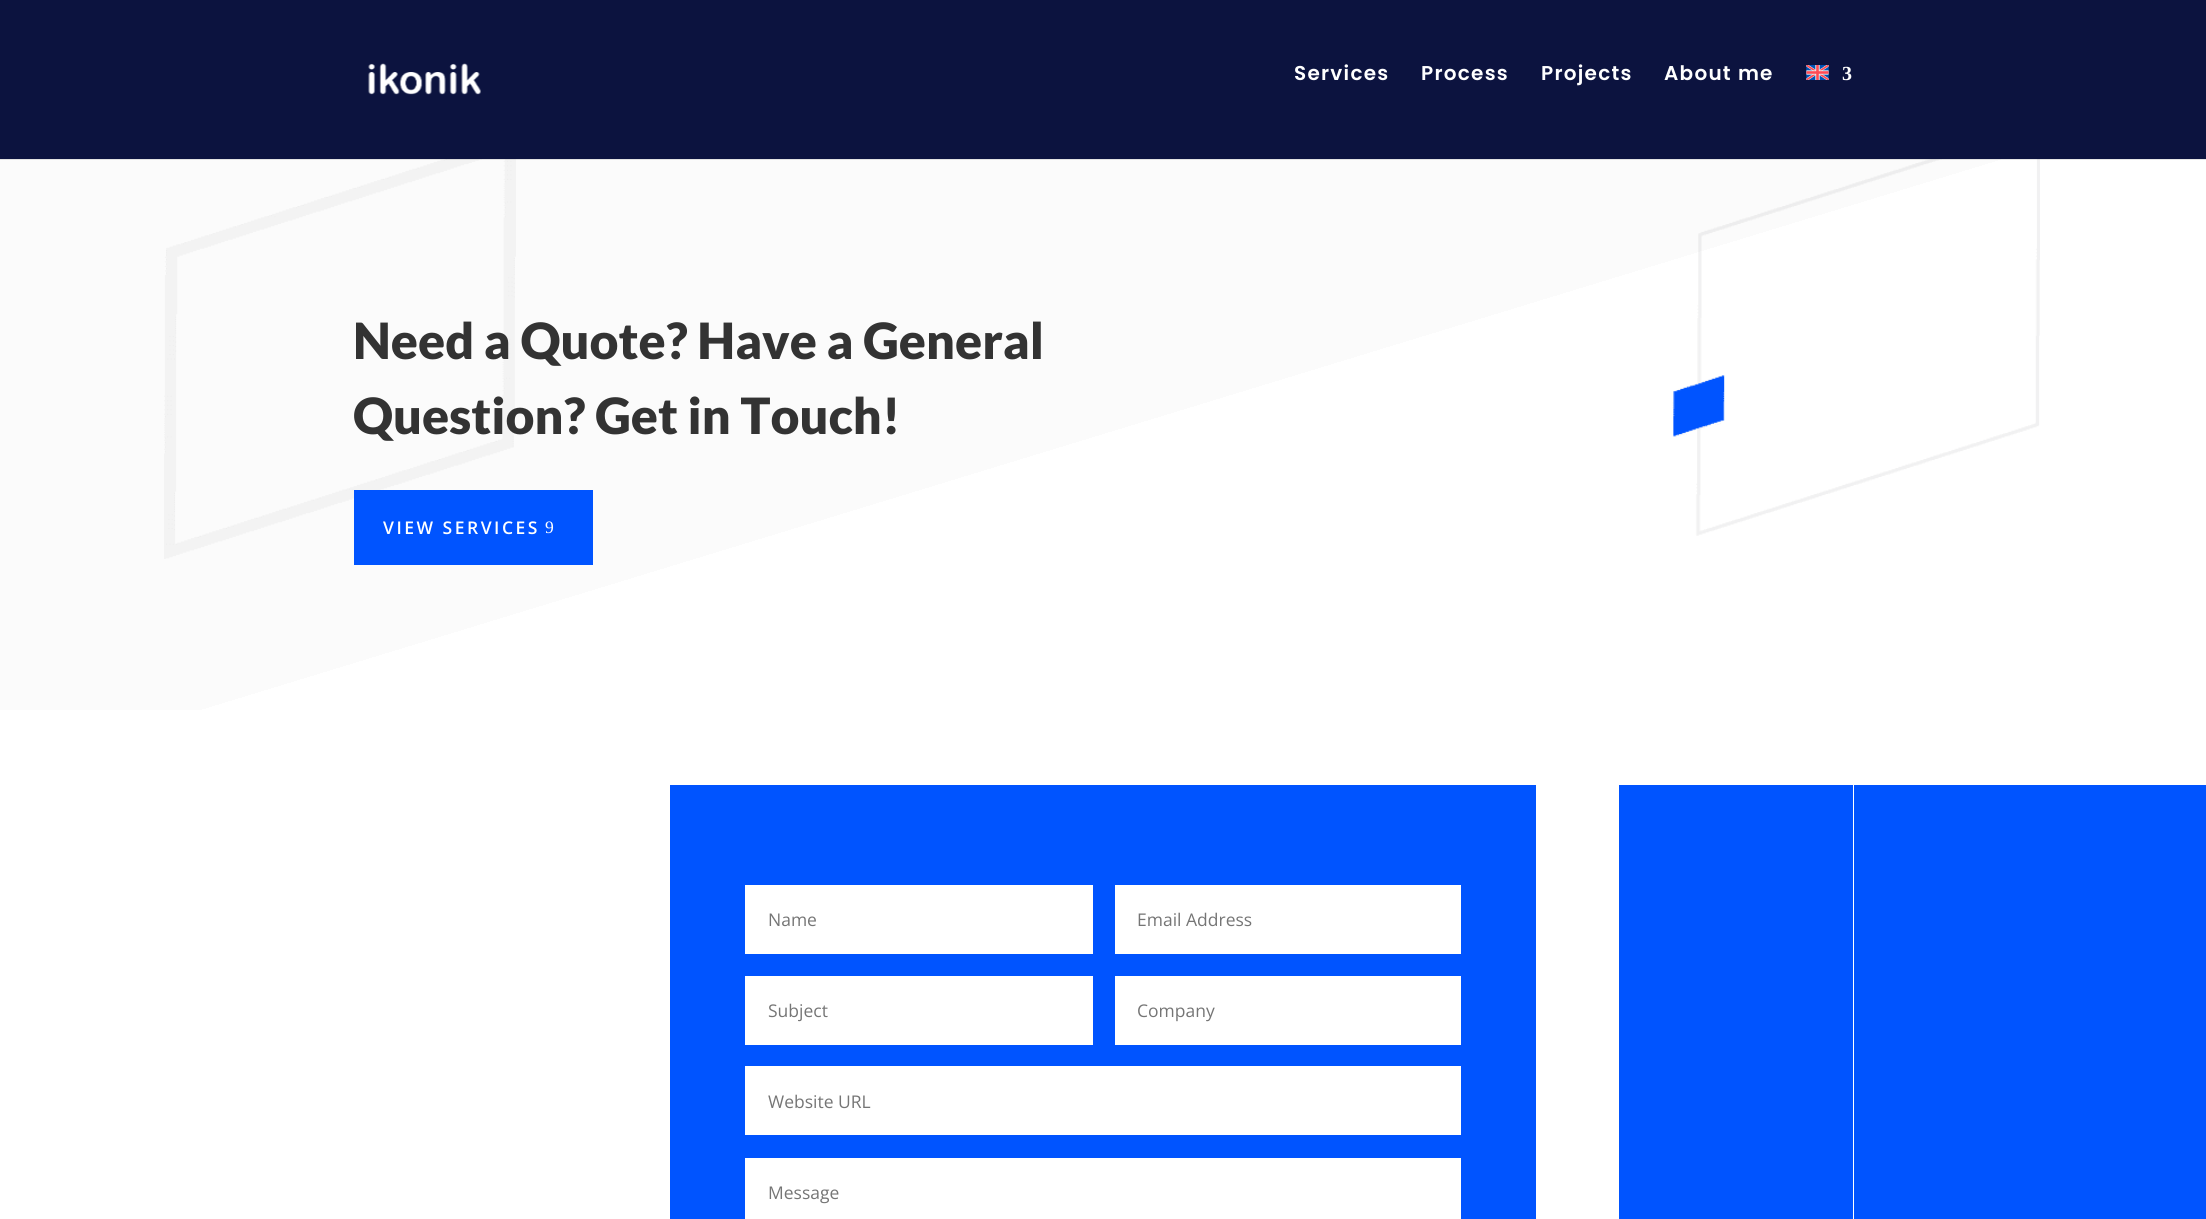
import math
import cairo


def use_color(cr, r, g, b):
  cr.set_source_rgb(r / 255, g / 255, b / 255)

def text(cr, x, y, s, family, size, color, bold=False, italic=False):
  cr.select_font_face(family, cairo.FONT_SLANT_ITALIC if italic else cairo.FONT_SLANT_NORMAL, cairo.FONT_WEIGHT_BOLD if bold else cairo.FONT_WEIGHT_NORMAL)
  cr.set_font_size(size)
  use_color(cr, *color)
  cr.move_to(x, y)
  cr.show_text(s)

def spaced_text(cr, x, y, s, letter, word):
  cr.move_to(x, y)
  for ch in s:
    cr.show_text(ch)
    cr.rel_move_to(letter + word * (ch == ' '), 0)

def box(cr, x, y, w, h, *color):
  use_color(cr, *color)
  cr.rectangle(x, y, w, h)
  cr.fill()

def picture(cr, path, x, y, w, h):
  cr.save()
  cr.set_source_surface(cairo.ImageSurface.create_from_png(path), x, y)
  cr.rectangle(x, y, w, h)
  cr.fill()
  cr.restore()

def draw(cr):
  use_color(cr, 255, 255, 255)
  cr.paint()
  gradient = cairo.LinearGradient(932, -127, 1275, 995)
  gradient.add_color_stop_rgba(0.5, 0.984, 0.984, 0.984, 1)
  gradient.add_color_stop_rgba(0.5, 1, 1, 1, 1)
  cr.set_source(gradient)
  cr.rectangle(0, 159, 2001, 551)
  cr.fill()
  picture(cr, "img_03.png", 164, 159, 1876, 400)
  cr.set_source_rgba(0, 0, 0, 0.1)
  cr.rectangle(0, 159, 2206, 1)
  cr.fill()
  box(cr, 0, 0, 2206, 159, 12, 19, 63)
  picture(cr, "img_01.png", 368, 63, 113, 32)
  picture(cr, "img_02.png", 1806, 65, 23, 15)
  box(cr, 354, 490, 239, 75, 0, 84, 255)
  box(cr, 1854, 785, 352, 434, 0, 84, 255)
  box(cr, 670, 785, 866, 434, 0, 84, 255)
  box(cr, 745, 885, 348, 69, 255, 255, 255)
  box(cr, 1115, 885, 346, 69, 255, 255, 255)
  box(cr, 745, 976, 348, 69, 255, 255, 255)
  box(cr, 1115, 976, 346, 69, 255, 255, 255)
  box(cr, 745, 1066, 716, 69, 255, 255, 255)
  box(cr, 745, 1158, 716, 61, 255, 255, 255)
  box(cr, 1619, 785, 234, 434, 0, 84, 255)
  cr.select_font_face("Poppins SemiBold")
  cr.set_font_size(20)
  use_color(cr, 255, 255, 255)
  spaced_text(cr, 1294, 80, "Services", 1.25, 0)
  spaced_text(cr, 1421, 80, "Process", 1.25, 0)
  spaced_text(cr, 1541, 80, "Projects", 1.25, 0)
  spaced_text(cr, 1664, 80, "About me", 1.25, 0)
  cr.select_font_face("Liberation Serif", cairo.FONT_SLANT_NORMAL, cairo.FONT_WEIGHT_BOLD)
  spaced_text(cr, 1842, 80, "3", 1.25, 0)
  text(cr, 353, 359, "Need a Quote? Have a General", "Lato Black", 50, (51, 51, 51))
  text(cr, 353, 434, "Question? Get in Touch!", "Lato Black", 50, (51, 51, 51))
  cr.select_font_face("Open Sans SemiBold")
  cr.set_font_size(17.5)
  use_color(cr, 255, 255, 255)
  spaced_text(cr, 383, 534, "VIEW SERVICES", 2.5, 0)
  cr.select_font_face("Liberation Serif")
  spaced_text(cr, 545, 533, "9", 2.5, 0)
  text(cr, 768, 926, "Name", "Open Sans", 17.5, (117, 117, 117))
  text(cr, 1137, 926, "Email Address", "Open Sans", 17.5, (117, 117, 117))
  text(cr, 768, 1017, "Subject", "Open Sans", 17.5, (117, 117, 117))
  text(cr, 1137, 1017, "Company", "Open Sans", 17.5, (117, 117, 117))
  text(cr, 768, 1108, "Website URL", "Open Sans", 17.5, (117, 117, 117))
  text(cr, 768, 1199, "Message", "Open Sans", 17.5, (117, 117, 117))


surface = cairo.ImageSurface(cairo.FORMAT_RGB24, 2206, 1219)
cr = cairo.Context(surface)
options = cairo.FontOptions()
options.set_hint_metrics(cairo.HINT_METRICS_OFF)
options.set_hint_style(cairo.HINT_STYLE_NONE)
cr.set_font_options(options)
cr.set_miter_limit(4)
draw(cr)
surface.write_to_png("out.png")
